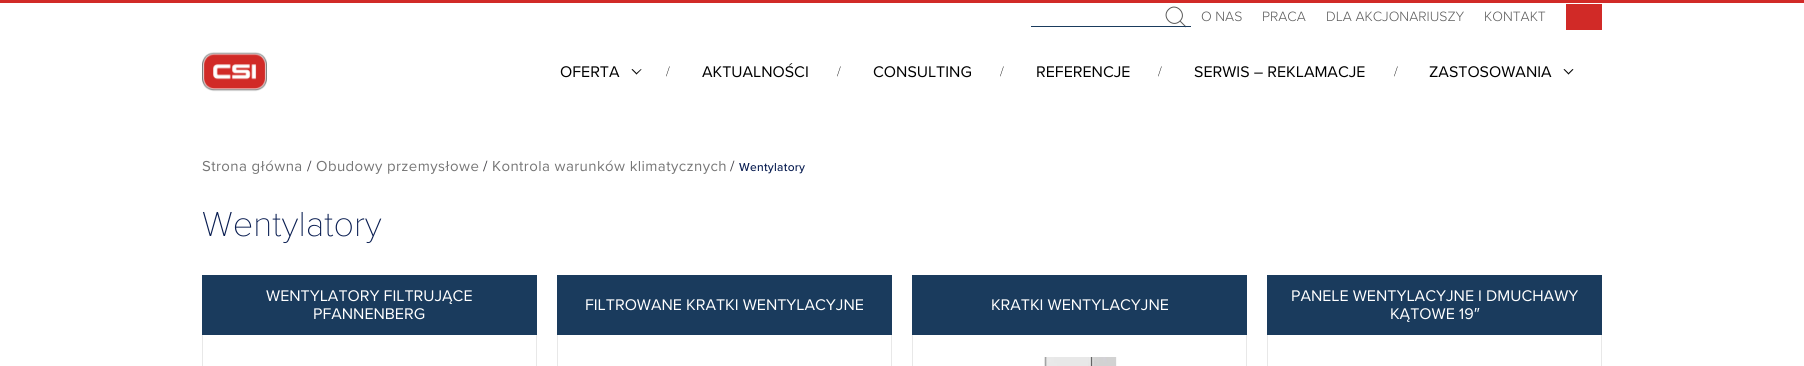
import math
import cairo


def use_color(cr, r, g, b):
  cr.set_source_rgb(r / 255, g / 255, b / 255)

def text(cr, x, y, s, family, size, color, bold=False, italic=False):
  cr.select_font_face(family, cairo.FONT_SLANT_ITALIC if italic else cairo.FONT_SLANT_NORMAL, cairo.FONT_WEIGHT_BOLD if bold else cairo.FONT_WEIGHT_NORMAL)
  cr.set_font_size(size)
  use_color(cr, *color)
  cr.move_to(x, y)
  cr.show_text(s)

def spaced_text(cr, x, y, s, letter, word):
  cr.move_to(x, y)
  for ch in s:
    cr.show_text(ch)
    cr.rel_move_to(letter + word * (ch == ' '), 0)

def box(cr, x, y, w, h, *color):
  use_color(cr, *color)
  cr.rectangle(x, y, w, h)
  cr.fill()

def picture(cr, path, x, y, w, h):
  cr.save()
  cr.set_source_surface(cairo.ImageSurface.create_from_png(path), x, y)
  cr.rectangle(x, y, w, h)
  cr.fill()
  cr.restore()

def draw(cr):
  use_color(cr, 255, 255, 255)
  cr.paint()
  box(cr, 0, 0, 1804, 3, 209, 42, 39)
  picture(cr, "img_01.png", 202, 52, 65, 40)
  cr.new_path()
  cr.move_to(1180, 21)
  cr.curve_to(1172.5, 28.5, 1161, 17, 1168.5, 9.5)
  cr.curve_to(1176, 2, 1187.5, 13.5, 1180, 21)
  cr.line_to(1186, 27)
  use_color(cr, 90, 90, 90)
  cr.set_line_width(1)
  cr.stroke()
  box(cr, 1031, 26, 160, 1, 26, 59, 93)
  box(cr, 1566, 4, 36, 26, 209, 42, 39)
  use_color(cr, 0, 0, 0)
  cr.new_path()
  cr.move_to(641, 69)
  cr.line_to(641.5, 69.5)
  cr.line_to(636.5, 74.5)
  cr.line_to(636, 73.5)
  cr.close_path()
  cr.fill()
  cr.new_path()
  cr.move_to(632.5, 69)
  cr.line_to(637, 73.5)
  cr.line_to(636.5, 74.5)
  cr.line_to(631.5, 69.5)
  cr.close_path()
  cr.fill()
  cr.new_path()
  cr.move_to(1572.5, 69)
  cr.line_to(1573.5, 69.5)
  cr.line_to(1568.5, 74.5)
  cr.line_to(1568, 73.5)
  cr.close_path()
  cr.fill()
  cr.new_path()
  cr.move_to(1564.5, 69)
  cr.line_to(1569, 73.5)
  cr.line_to(1568.5, 74.5)
  cr.line_to(1563.5, 69.5)
  cr.close_path()
  cr.fill()
  box(cr, 202, 275, 335, 60, 26, 59, 93)
  box(cr, 536, 335, 1, 31, 232, 232, 232)
  box(cr, 202, 335, 1, 31, 232, 232, 232)
  box(cr, 557, 275, 335, 60, 26, 59, 93)
  box(cr, 891, 335, 1, 31, 232, 232, 232)
  box(cr, 557, 335, 1, 31, 232, 232, 232)
  box(cr, 912, 275, 335, 60, 26, 59, 93)
  box(cr, 1246, 335, 1, 31, 232, 232, 232)
  box(cr, 912, 335, 1, 31, 232, 232, 232)
  picture(cr, "img_02.png", 1044, 357, 73, 9)
  box(cr, 1267, 275, 335, 60, 26, 59, 93)
  box(cr, 1601, 335, 1, 31, 232, 232, 232)
  box(cr, 1267, 335, 1, 31, 232, 232, 232)
  text(cr, 1201, 21, "O NAS", "Proxima Nova Light", 14, (90, 90, 90))
  text(cr, 1262, 21, "PRACA", "Proxima Nova Light", 14, (90, 90, 90))
  text(cr, 1326, 21, "DLA AKCJONARIUSZY", "Proxima Nova Light", 14, (90, 90, 90))
  text(cr, 1484, 21, "KONTAKT", "Proxima Nova Light", 14, (90, 90, 90))
  text(cr, 560, 77, "OFERTA", "Proxima Nova", 16, (0, 0, 0))
  text(cr, 666, 76, "/", "Proxima Nova Thin", 14, (0, 0, 0))
  text(cr, 702, 77, "AKTUALNOŚCI", "Proxima Nova", 16, (0, 0, 0))
  text(cr, 837, 76, "/", "Proxima Nova Thin", 14, (0, 0, 0))
  text(cr, 873, 77, "CONSULTING", "Proxima Nova", 16, (0, 0, 0))
  text(cr, 1000, 76, "/", "Proxima Nova Thin", 14, (0, 0, 0))
  text(cr, 1036, 77, "REFERENCJE", "Proxima Nova", 16, (0, 0, 0))
  text(cr, 1158, 76, "/", "Proxima Nova Thin", 14, (0, 0, 0))
  text(cr, 1194, 77, "SERWIS – REKLAMACJE", "Proxima Nova", 16, (0, 0, 0))
  text(cr, 1394, 76, "/", "Proxima Nova Thin", 14, (0, 0, 0))
  text(cr, 1429, 77, "ZASTOSOWANIA", "Proxima Nova", 16, (0, 0, 0))
  cr.set_font_size(15)
  use_color(cr, 118, 118, 118)
  spaced_text(cr, 202, 171, "Strona główna", 0.4, 0)
  use_color(cr, 63, 62, 68)
  spaced_text(cr, 307, 171, "/", 0.4, 0)
  use_color(cr, 118, 118, 118)
  spaced_text(cr, 316, 171, "Obudowy przemysłowe", 0.4, 0)
  use_color(cr, 63, 62, 68)
  spaced_text(cr, 483, 171, "/", 0.4, 0)
  use_color(cr, 118, 118, 118)
  spaced_text(cr, 492, 171, "Kontrola warunków klimatycznych", 0.4, 0)
  use_color(cr, 63, 62, 68)
  spaced_text(cr, 730, 171, "/", 0.4, 0)
  cr.select_font_face("Proxima Nova Medium")
  cr.set_font_size(12)
  use_color(cr, 9, 29, 81)
  spaced_text(cr, 739, 171, "Wentylatory", 0.25, 0)
  text(cr, 202, 236, "Wentylatory", "Proxima Nova Thin", 36, (9, 29, 81))
  text(cr, 266, 301, "WENTYLATORY FILTRUJĄCE", "Proxima Nova", 16, (255, 255, 255))
  text(cr, 313, 319, "PFANNENBERG", "Proxima Nova", 16, (255, 255, 255))
  text(cr, 585, 310, "FILTROWANE KRATKI WENTYLACYJNE", "Proxima Nova", 16, (255, 255, 255))
  text(cr, 991, 310, "KRATKI WENTYLACYJNE", "Proxima Nova", 16, (255, 255, 255))
  text(cr, 1291, 301, "PANELE WENTYLACYJNE I DMUCHAWY", "Proxima Nova", 16, (255, 255, 255))
  text(cr, 1390, 319, "KĄTOWE 19", "Proxima Nova", 16, (255, 255, 255))
  text(cr, 1474, 319, "″", "Liberation Sans", 16, (255, 255, 255))


surface = cairo.ImageSurface(cairo.FORMAT_RGB24, 1804, 366)
cr = cairo.Context(surface)
options = cairo.FontOptions()
options.set_hint_metrics(cairo.HINT_METRICS_OFF)
options.set_hint_style(cairo.HINT_STYLE_NONE)
cr.set_font_options(options)
cr.set_miter_limit(4)
draw(cr)
surface.write_to_png("out.png")
